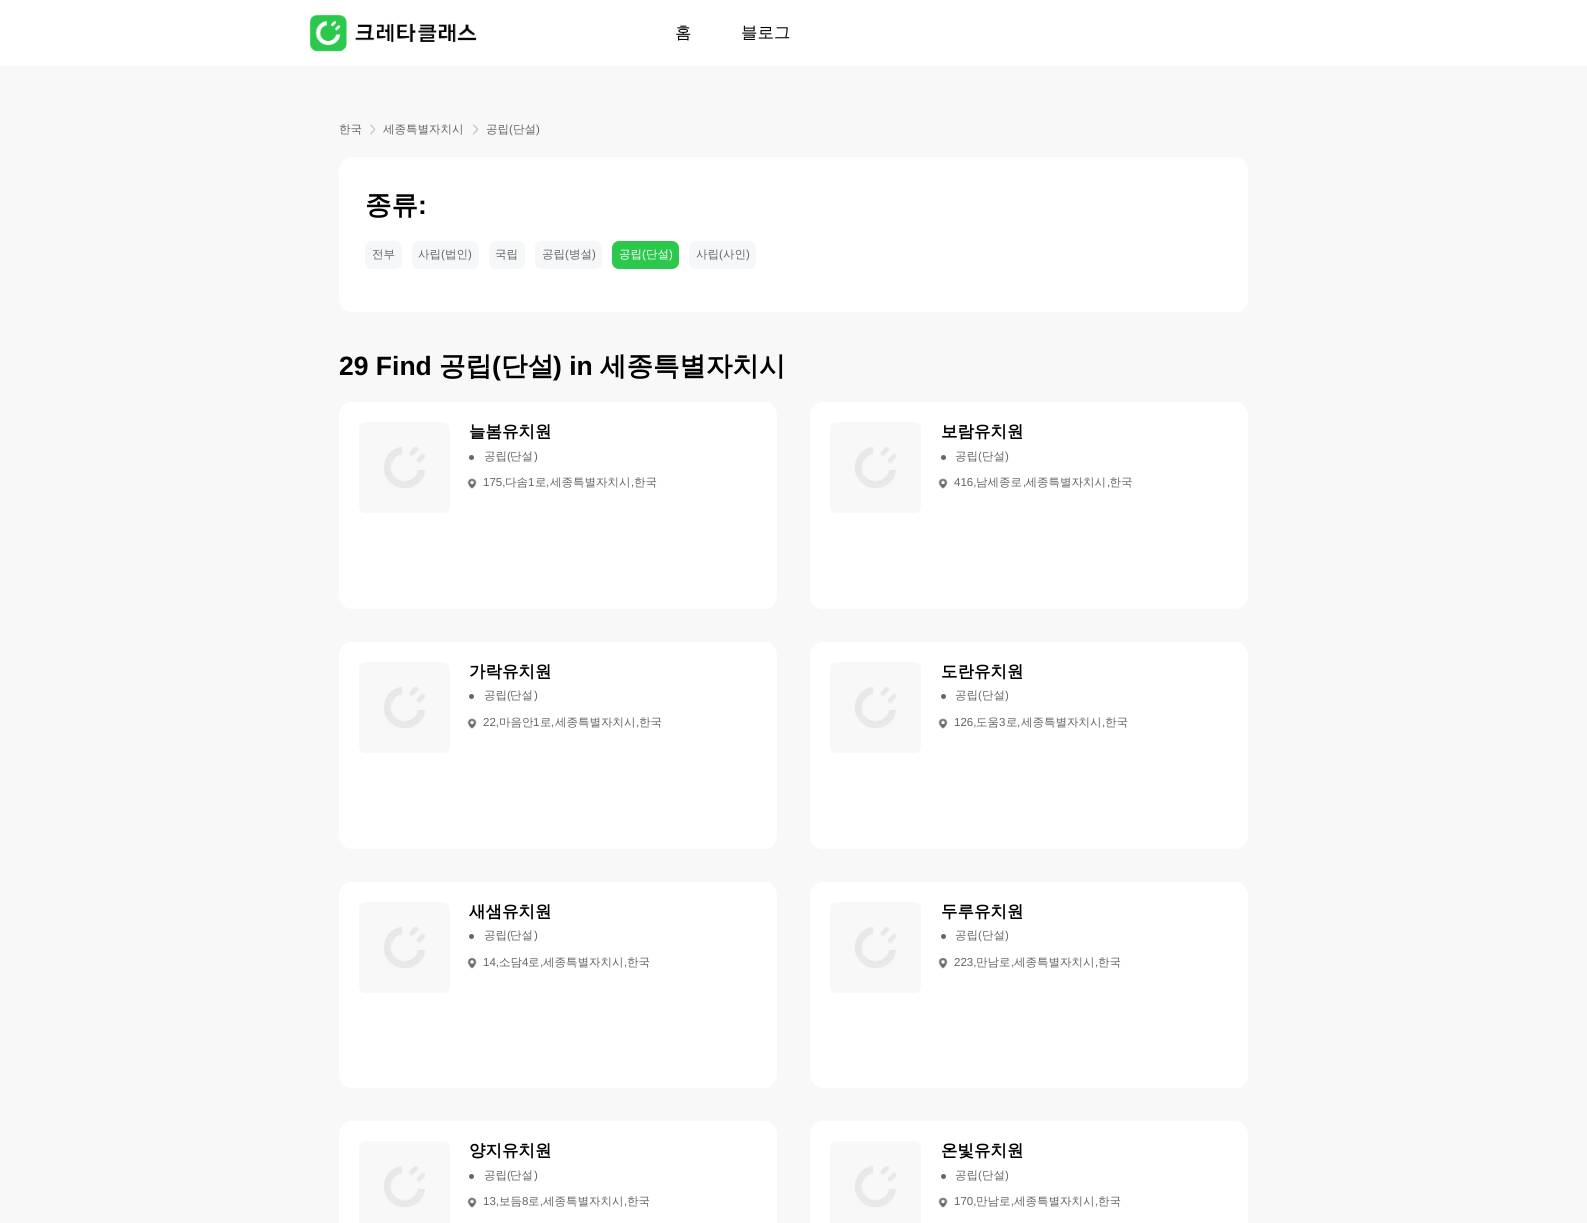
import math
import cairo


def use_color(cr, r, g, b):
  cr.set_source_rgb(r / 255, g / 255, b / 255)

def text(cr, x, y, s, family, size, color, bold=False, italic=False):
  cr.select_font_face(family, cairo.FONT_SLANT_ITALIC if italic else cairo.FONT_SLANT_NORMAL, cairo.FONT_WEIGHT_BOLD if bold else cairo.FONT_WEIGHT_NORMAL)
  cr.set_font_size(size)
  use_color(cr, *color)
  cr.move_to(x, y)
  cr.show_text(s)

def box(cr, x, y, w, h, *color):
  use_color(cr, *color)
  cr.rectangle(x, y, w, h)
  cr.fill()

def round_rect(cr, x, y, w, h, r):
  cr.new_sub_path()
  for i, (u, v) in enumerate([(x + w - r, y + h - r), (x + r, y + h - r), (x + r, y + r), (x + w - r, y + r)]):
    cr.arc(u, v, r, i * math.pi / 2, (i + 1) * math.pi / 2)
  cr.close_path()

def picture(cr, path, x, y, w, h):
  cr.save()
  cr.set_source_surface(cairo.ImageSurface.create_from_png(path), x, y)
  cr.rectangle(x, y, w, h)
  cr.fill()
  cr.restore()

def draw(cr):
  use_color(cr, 248, 248, 248)
  cr.paint()
  box(cr, 0, 0, 1587, 66, 255, 255, 255)
  picture(cr, "img_01.png", 309, 14, 168, 38)
  picture(cr, "img_02.png", 370, 124, 5, 11)
  picture(cr, "img_03.png", 472, 124, 6, 11)
  round_rect(cr, 339, 157, 909, 155, 13)
  cr.fill()
  use_color(cr, 246, 247, 248)
  round_rect(cr, 365, 241, 37, 28, 7)
  cr.fill()
  round_rect(cr, 412, 241, 67, 28, 7)
  cr.fill()
  round_rect(cr, 489, 241, 36, 28, 7)
  cr.fill()
  round_rect(cr, 535, 241, 67, 28, 7)
  cr.fill()
  use_color(cr, 44, 200, 77)
  round_rect(cr, 612, 241, 67, 28, 7)
  cr.fill()
  use_color(cr, 246, 247, 248)
  round_rect(cr, 689, 241, 67, 28, 7)
  cr.fill()
  use_color(cr, 255, 255, 255)
  round_rect(cr, 339, 402, 438, 207, 13)
  cr.fill()
  picture(cr, "img_04.png", 359, 422, 91, 91)
  use_color(cr, 102, 102, 102)
  cr.arc(471.5, 457.5, 2.5, 0, 2 * math.pi)
  cr.fill()
  picture(cr, "img_05.png", 467, 478, 10, 11)
  use_color(cr, 255, 255, 255)
  round_rect(cr, 810, 402, 438, 207, 13)
  cr.fill()
  picture(cr, "img_04.png", 830, 422, 91, 91)
  use_color(cr, 102, 102, 102)
  cr.arc(943.5, 457.5, 2.5, 0, 2 * math.pi)
  cr.fill()
  picture(cr, "img_06.png", 938, 478, 10, 11)
  use_color(cr, 255, 255, 255)
  round_rect(cr, 339, 642, 438, 207, 13)
  cr.fill()
  picture(cr, "img_04.png", 359, 662, 91, 91)
  use_color(cr, 102, 102, 102)
  cr.arc(471.5, 696.5, 2.5, 0, 2 * math.pi)
  cr.fill()
  picture(cr, "img_05.png", 467, 718, 10, 11)
  use_color(cr, 255, 255, 255)
  round_rect(cr, 810, 642, 438, 207, 13)
  cr.fill()
  picture(cr, "img_04.png", 830, 662, 91, 91)
  use_color(cr, 102, 102, 102)
  cr.arc(943.5, 696.5, 2.5, 0, 2 * math.pi)
  cr.fill()
  picture(cr, "img_06.png", 938, 718, 10, 11)
  use_color(cr, 255, 255, 255)
  round_rect(cr, 339, 882, 438, 206, 13)
  cr.fill()
  picture(cr, "img_04.png", 359, 902, 91, 91)
  use_color(cr, 102, 102, 102)
  cr.arc(471.5, 936.5, 2.5, 0, 2 * math.pi)
  cr.fill()
  picture(cr, "img_07.png", 467, 957, 10, 12)
  use_color(cr, 255, 255, 255)
  round_rect(cr, 810, 882, 438, 206, 13)
  cr.fill()
  picture(cr, "img_04.png", 830, 902, 91, 91)
  use_color(cr, 102, 102, 102)
  cr.arc(943.5, 936.5, 2.5, 0, 2 * math.pi)
  cr.fill()
  picture(cr, "img_08.png", 938, 957, 10, 12)
  use_color(cr, 255, 255, 255)
  round_rect(cr, 339, 1121, 438, 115, 13)
  cr.fill()
  picture(cr, "img_09.png", 359, 1141, 91, 82)
  use_color(cr, 102, 102, 102)
  cr.arc(471.5, 1176.5, 2.5, 0, 2 * math.pi)
  cr.fill()
  picture(cr, "img_05.png", 467, 1197, 10, 11)
  use_color(cr, 255, 255, 255)
  round_rect(cr, 810, 1121, 438, 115, 13)
  cr.fill()
  picture(cr, "img_09.png", 830, 1141, 91, 82)
  use_color(cr, 102, 102, 102)
  cr.arc(943.5, 1176.5, 2.5, 0, 2 * math.pi)
  cr.fill()
  picture(cr, "img_06.png", 938, 1197, 10, 11)
  text(cr, 675, 38, "홈", "WenQuanYi Zen Hei Medium", 16.5, (0, 0, 0))
  text(cr, 741, 38, "블로그", "WenQuanYi Zen Hei Medium", 16.5, (0, 0, 0))
  text(cr, 339, 133, "한국", "WenQuanYi Zen Hei Medium", 11.5, (98, 99, 99))
  text(cr, 383, 133, "세종특별자치시", "WenQuanYi Zen Hei Medium", 11.5, (98, 99, 99))
  text(cr, 486, 133, "공립", "WenQuanYi Zen Hei Medium", 11.5, (98, 99, 99))
  text(cr, 509, 133, "(", "Liberation Sans", 11.5, (98, 99, 99))
  text(cr, 513, 133, "단설", "WenQuanYi Zen Hei Medium", 11.5, (98, 99, 99))
  text(cr, 536, 133, ")", "Liberation Sans", 11.5, (98, 99, 99))
  text(cr, 365, 214, "종류", "WenQuanYi Zen Hei", 26.5, (0, 0, 0), bold=True)
  text(cr, 418, 214, ":", "Liberation Sans", 26.5, (0, 0, 0), bold=True)
  text(cr, 372, 258, "전부", "WenQuanYi Zen Hei Medium", 11.5, (98, 99, 99))
  text(cr, 418, 258, "사립", "WenQuanYi Zen Hei Medium", 11.5, (98, 99, 99))
  text(cr, 441, 258, "(", "Liberation Sans", 11.5, (98, 99, 99))
  text(cr, 445, 258, "법인", "WenQuanYi Zen Hei Medium", 11.5, (98, 99, 99))
  text(cr, 468, 258, ")", "Liberation Sans", 11.5, (98, 99, 99))
  text(cr, 495, 258, "국립", "WenQuanYi Zen Hei Medium", 11.5, (98, 99, 99))
  text(cr, 542, 258, "공립", "WenQuanYi Zen Hei Medium", 11.5, (98, 99, 99))
  text(cr, 565, 258, "(", "Liberation Sans", 11.5, (98, 99, 99))
  text(cr, 569, 258, "병설", "WenQuanYi Zen Hei Medium", 11.5, (98, 99, 99))
  text(cr, 592, 258, ")", "Liberation Sans", 11.5, (98, 99, 99))
  text(cr, 619, 258, "공립", "WenQuanYi Zen Hei Medium", 11.5, (255, 255, 255))
  text(cr, 642, 258, "(", "Liberation Sans", 11.5, (255, 255, 255))
  text(cr, 646, 258, "단설", "WenQuanYi Zen Hei Medium", 11.5, (255, 255, 255))
  text(cr, 669, 258, ")", "Liberation Sans", 11.5, (255, 255, 255))
  text(cr, 696, 258, "사립", "WenQuanYi Zen Hei Medium", 11.5, (98, 99, 99))
  text(cr, 719, 258, "(", "Liberation Sans", 11.5, (98, 99, 99))
  text(cr, 723, 258, "사인", "WenQuanYi Zen Hei Medium", 11.5, (98, 99, 99))
  text(cr, 746, 258, ")", "Liberation Sans", 11.5, (98, 99, 99))
  text(cr, 339, 375, "29 Find", "Liberation Sans", 26.5, (0, 0, 0), bold=True)
  text(cr, 439, 375, "공립", "WenQuanYi Zen Hei", 26.5, (0, 0, 0), bold=True)
  text(cr, 492, 375, "(", "Liberation Sans", 26.5, (0, 0, 0), bold=True)
  text(cr, 501, 375, "단설", "WenQuanYi Zen Hei", 26.5, (0, 0, 0), bold=True)
  text(cr, 553, 375, ") in", "Liberation Sans", 26.5, (0, 0, 0), bold=True)
  text(cr, 600, 375, "세종특별자치시", "WenQuanYi Zen Hei", 26.5, (0, 0, 0), bold=True)
  text(cr, 469, 437, "늘봄유치원", "WenQuanYi Zen Hei", 16.5, (0, 0, 0), bold=True)
  text(cr, 484, 460, "공립", "WenQuanYi Zen Hei Medium", 11.5, (98, 99, 99))
  text(cr, 507, 460, "(", "Liberation Sans", 11.5, (98, 99, 99))
  text(cr, 510, 460, "단설", "WenQuanYi Zen Hei Medium", 11.5, (98, 99, 99))
  text(cr, 534, 460, ")", "Liberation Sans", 11.5, (98, 99, 99))
  text(cr, 483, 486, "175,", "Liberation Sans", 11.5, (98, 99, 99))
  text(cr, 505, 486, "다솜", "WenQuanYi Zen Hei Medium", 11.5, (98, 99, 99))
  text(cr, 528, 486, "1", "Liberation Sans", 11.5, (98, 99, 99))
  text(cr, 535, 486, "로 세종특별자치시 한국", "WenQuanYi Zen Hei Medium", 11.5, (98, 99, 99))
  text(cr, 546, 486, ",", "Liberation Sans", 11.5, (98, 99, 99))
  text(cr, 631, 486, ",", "Liberation Sans", 11.5, (98, 99, 99))
  text(cr, 941, 437, "보람유치원", "WenQuanYi Zen Hei", 16.5, (0, 0, 0), bold=True)
  text(cr, 955, 460, "공립", "WenQuanYi Zen Hei Medium", 11.5, (98, 99, 99))
  text(cr, 978, 460, "(", "Liberation Sans", 11.5, (98, 99, 99))
  text(cr, 982, 460, "단설", "WenQuanYi Zen Hei Medium", 11.5, (98, 99, 99))
  text(cr, 1005, 460, ")", "Liberation Sans", 11.5, (98, 99, 99))
  text(cr, 954, 486, "416,", "Liberation Sans", 11.5, (98, 99, 99))
  text(cr, 976, 486, "남세종로 세종특별자치시 한국", "WenQuanYi Zen Hei Medium", 11.5, (98, 99, 99))
  text(cr, 1023, 486, ",", "Liberation Sans", 11.5, (98, 99, 99))
  text(cr, 1107, 486, ",", "Liberation Sans", 11.5, (98, 99, 99))
  text(cr, 469, 677, "가락유치원", "WenQuanYi Zen Hei", 16.5, (0, 0, 0), bold=True)
  text(cr, 484, 699, "공립", "WenQuanYi Zen Hei Medium", 11.5, (98, 99, 99))
  text(cr, 507, 699, "(", "Liberation Sans", 11.5, (98, 99, 99))
  text(cr, 510, 699, "단설", "WenQuanYi Zen Hei Medium", 11.5, (98, 99, 99))
  text(cr, 534, 699, ")", "Liberation Sans", 11.5, (98, 99, 99))
  text(cr, 483, 726, "22,", "Liberation Sans", 11.5, (98, 99, 99))
  text(cr, 499, 726, "마음안", "WenQuanYi Zen Hei Medium", 11.5, (98, 99, 99))
  text(cr, 533, 726, "1", "Liberation Sans", 11.5, (98, 99, 99))
  text(cr, 540, 726, "로 세종특별자치시 한국", "WenQuanYi Zen Hei Medium", 11.5, (98, 99, 99))
  text(cr, 551, 726, ",", "Liberation Sans", 11.5, (98, 99, 99))
  text(cr, 636, 726, ",", "Liberation Sans", 11.5, (98, 99, 99))
  text(cr, 941, 677, "도란유치원", "WenQuanYi Zen Hei", 16.5, (0, 0, 0), bold=True)
  text(cr, 955, 699, "공립", "WenQuanYi Zen Hei Medium", 11.5, (98, 99, 99))
  text(cr, 978, 699, "(", "Liberation Sans", 11.5, (98, 99, 99))
  text(cr, 982, 699, "단설", "WenQuanYi Zen Hei Medium", 11.5, (98, 99, 99))
  text(cr, 1005, 699, ")", "Liberation Sans", 11.5, (98, 99, 99))
  text(cr, 954, 726, "126,", "Liberation Sans", 11.5, (98, 99, 99))
  text(cr, 976, 726, "도움", "WenQuanYi Zen Hei Medium", 11.5, (98, 99, 99))
  text(cr, 999, 726, "3", "Liberation Sans", 11.5, (98, 99, 99))
  text(cr, 1006, 726, "로 세종특별자치시 한국", "WenQuanYi Zen Hei Medium", 11.5, (98, 99, 99))
  text(cr, 1017, 726, ",", "Liberation Sans", 11.5, (98, 99, 99))
  text(cr, 1102, 726, ",", "Liberation Sans", 11.5, (98, 99, 99))
  text(cr, 469, 917, "새샘유치원", "WenQuanYi Zen Hei", 16.5, (0, 0, 0), bold=True)
  text(cr, 484, 939, "공립", "WenQuanYi Zen Hei Medium", 11.5, (98, 99, 99))
  text(cr, 507, 939, "(", "Liberation Sans", 11.5, (98, 99, 99))
  text(cr, 510, 939, "단설", "WenQuanYi Zen Hei Medium", 11.5, (98, 99, 99))
  text(cr, 534, 939, ")", "Liberation Sans", 11.5, (98, 99, 99))
  text(cr, 483, 966, "14,", "Liberation Sans", 11.5, (98, 99, 99))
  text(cr, 499, 966, "소담", "WenQuanYi Zen Hei Medium", 11.5, (98, 99, 99))
  text(cr, 522, 966, "4", "Liberation Sans", 11.5, (98, 99, 99))
  text(cr, 528, 966, "로 세종특별자치시 한국", "WenQuanYi Zen Hei Medium", 11.5, (98, 99, 99))
  text(cr, 540, 966, ",", "Liberation Sans", 11.5, (98, 99, 99))
  text(cr, 624, 966, ",", "Liberation Sans", 11.5, (98, 99, 99))
  text(cr, 941, 917, "두루유치원", "WenQuanYi Zen Hei", 16.5, (0, 0, 0), bold=True)
  text(cr, 955, 939, "공립", "WenQuanYi Zen Hei Medium", 11.5, (98, 99, 99))
  text(cr, 978, 939, "(", "Liberation Sans", 11.5, (98, 99, 99))
  text(cr, 982, 939, "단설", "WenQuanYi Zen Hei Medium", 11.5, (98, 99, 99))
  text(cr, 1005, 939, ")", "Liberation Sans", 11.5, (98, 99, 99))
  text(cr, 954, 966, "223,", "Liberation Sans", 11.5, (98, 99, 99))
  text(cr, 976, 966, "만남로 세종특별자치시 한국", "WenQuanYi Zen Hei Medium", 11.5, (98, 99, 99))
  text(cr, 1011, 966, ",", "Liberation Sans", 11.5, (98, 99, 99))
  text(cr, 1095, 966, ",", "Liberation Sans", 11.5, (98, 99, 99))
  text(cr, 469, 1156, "양지유치원", "WenQuanYi Zen Hei", 16.5, (0, 0, 0), bold=True)
  text(cr, 484, 1179, "공립", "WenQuanYi Zen Hei Medium", 11.5, (98, 99, 99))
  text(cr, 507, 1179, "(", "Liberation Sans", 11.5, (98, 99, 99))
  text(cr, 510, 1179, "단설", "WenQuanYi Zen Hei Medium", 11.5, (98, 99, 99))
  text(cr, 534, 1179, ")", "Liberation Sans", 11.5, (98, 99, 99))
  text(cr, 483, 1205, "13,", "Liberation Sans", 11.5, (98, 99, 99))
  text(cr, 499, 1205, "보듬", "WenQuanYi Zen Hei Medium", 11.5, (98, 99, 99))
  text(cr, 522, 1205, "8", "Liberation Sans", 11.5, (98, 99, 99))
  text(cr, 528, 1205, "로 세종특별자치시 한국", "WenQuanYi Zen Hei Medium", 11.5, (98, 99, 99))
  text(cr, 540, 1205, ",", "Liberation Sans", 11.5, (98, 99, 99))
  text(cr, 624, 1205, ",", "Liberation Sans", 11.5, (98, 99, 99))
  text(cr, 941, 1156, "온빛유치원", "WenQuanYi Zen Hei", 16.5, (0, 0, 0), bold=True)
  text(cr, 955, 1179, "공립", "WenQuanYi Zen Hei Medium", 11.5, (98, 99, 99))
  text(cr, 978, 1179, "(", "Liberation Sans", 11.5, (98, 99, 99))
  text(cr, 982, 1179, "단설", "WenQuanYi Zen Hei Medium", 11.5, (98, 99, 99))
  text(cr, 1005, 1179, ")", "Liberation Sans", 11.5, (98, 99, 99))
  text(cr, 954, 1205, "170,", "Liberation Sans", 11.5, (98, 99, 99))
  text(cr, 976, 1205, "만남로 세종특별자치시 한국", "WenQuanYi Zen Hei Medium", 11.5, (98, 99, 99))
  text(cr, 1011, 1205, ",", "Liberation Sans", 11.5, (98, 99, 99))
  text(cr, 1095, 1205, ",", "Liberation Sans", 11.5, (98, 99, 99))


surface = cairo.ImageSurface(cairo.FORMAT_RGB24, 1587, 1223)
cr = cairo.Context(surface)
options = cairo.FontOptions()
options.set_hint_metrics(cairo.HINT_METRICS_OFF)
options.set_hint_style(cairo.HINT_STYLE_NONE)
cr.set_font_options(options)
cr.set_miter_limit(4)
draw(cr)
surface.write_to_png("out.png")
